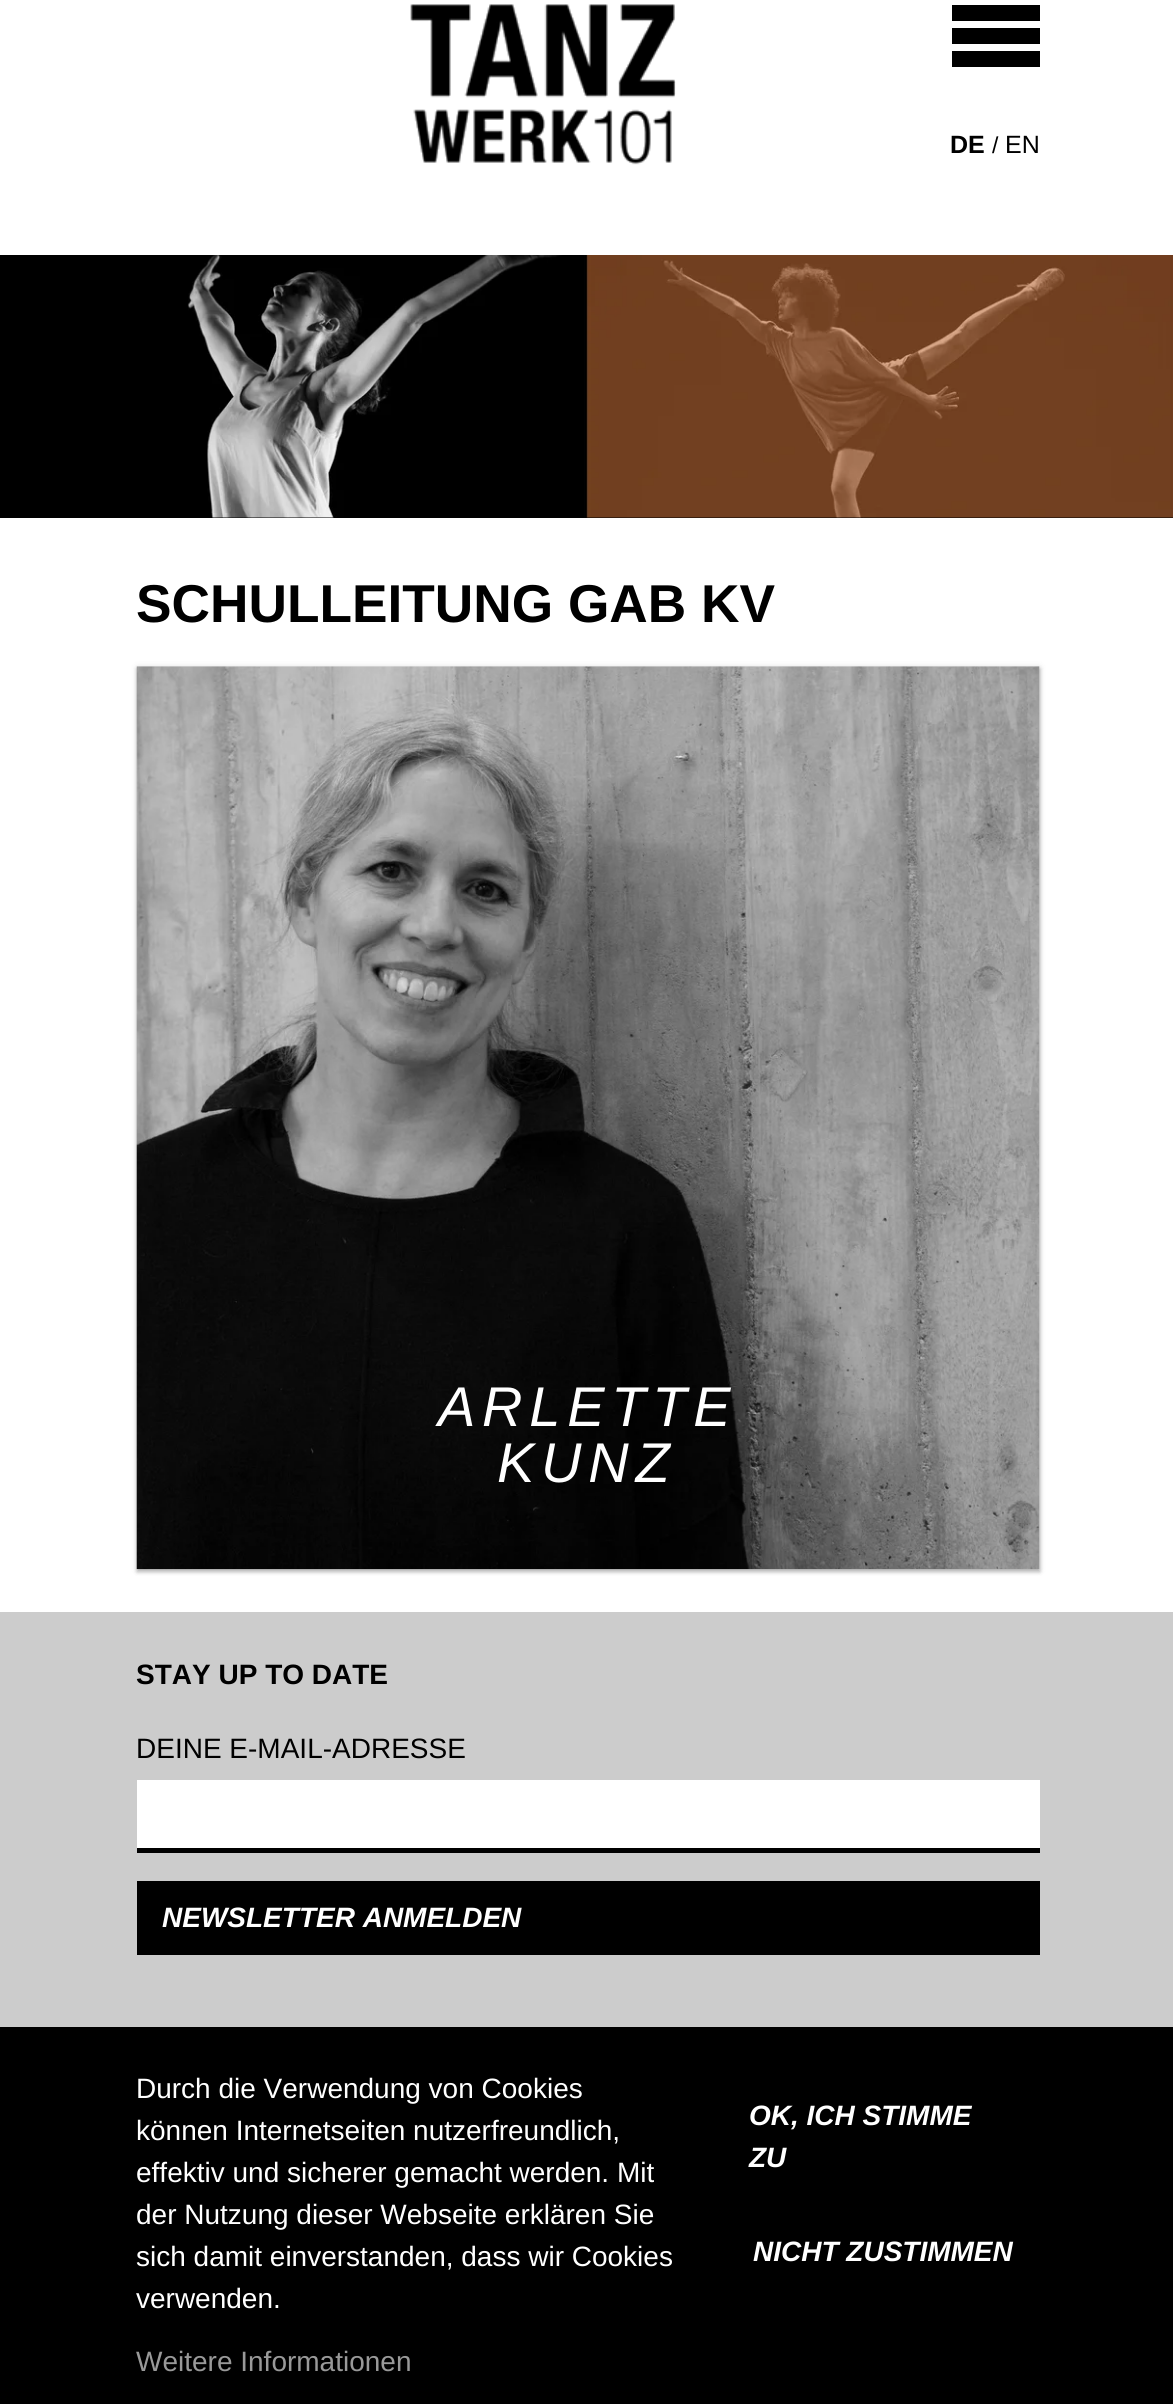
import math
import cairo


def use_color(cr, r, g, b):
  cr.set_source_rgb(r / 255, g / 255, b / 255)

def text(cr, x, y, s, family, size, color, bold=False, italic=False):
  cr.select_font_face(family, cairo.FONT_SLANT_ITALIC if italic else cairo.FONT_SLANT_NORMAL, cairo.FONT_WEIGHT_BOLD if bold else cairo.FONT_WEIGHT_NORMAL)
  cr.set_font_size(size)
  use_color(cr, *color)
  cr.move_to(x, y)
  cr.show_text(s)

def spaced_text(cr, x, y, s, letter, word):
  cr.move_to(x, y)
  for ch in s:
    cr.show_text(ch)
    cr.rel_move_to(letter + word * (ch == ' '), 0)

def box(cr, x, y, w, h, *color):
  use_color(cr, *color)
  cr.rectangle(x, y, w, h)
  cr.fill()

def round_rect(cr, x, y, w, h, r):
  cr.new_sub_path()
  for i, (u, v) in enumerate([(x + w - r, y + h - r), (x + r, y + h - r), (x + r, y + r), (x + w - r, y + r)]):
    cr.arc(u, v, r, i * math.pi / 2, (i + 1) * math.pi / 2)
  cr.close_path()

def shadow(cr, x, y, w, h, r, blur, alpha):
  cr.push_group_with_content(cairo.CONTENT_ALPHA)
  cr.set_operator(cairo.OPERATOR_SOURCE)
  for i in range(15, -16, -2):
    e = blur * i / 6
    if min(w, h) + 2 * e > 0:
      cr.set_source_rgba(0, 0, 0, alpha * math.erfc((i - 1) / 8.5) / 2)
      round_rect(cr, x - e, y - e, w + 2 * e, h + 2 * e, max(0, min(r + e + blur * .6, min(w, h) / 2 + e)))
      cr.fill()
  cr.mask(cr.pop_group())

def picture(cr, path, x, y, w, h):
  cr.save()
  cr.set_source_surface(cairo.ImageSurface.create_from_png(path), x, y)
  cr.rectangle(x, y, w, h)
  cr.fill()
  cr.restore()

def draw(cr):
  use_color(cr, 255, 255, 255)
  cr.paint()
  picture(cr, "img_01.png", 410, 4, 266, 161)
  box(cr, 952, 5, 88, 16, 0, 0, 0)
  box(cr, 952, 28, 88, 16, 0, 0, 0)
  box(cr, 952, 51, 88, 16, 0, 0, 0)
  box(cr, 0, 517, 1173, 1, 0, 0, 0)
  picture(cr, "img_02.png", 0, 255, 1173, 263)
  use_color(cr, 0, 0, 0)
  shadow(cr, 137, 669, 903, 903, 0, 2, 0.24)
  shadow(cr, 137, 667, 903, 903, 0, 3.5, 0.12)
  picture(cr, "img_03.png", 136, 666, 904, 904)
  box(cr, 0, 1612, 1173, 415, 204, 204, 204)
  box(cr, 137, 1780, 903, 68, 255, 255, 255)
  box(cr, 137, 1848, 903, 5, 0, 0, 0)
  box(cr, 137, 1881, 903, 74, 0, 0, 0)
  box(cr, 0, 2027, 1173, 377, 0, 0, 0)
  text(cr, 950, 153, "DE", "Liberation Sans", 25, (0, 0, 0), bold=True)
  text(cr, 992, 153, "/", "Liberation Sans", 23, (0, 0, 0))
  text(cr, 1005, 153, "EN", "Liberation Sans", 25, (0, 0, 0))
  text(cr, 136, 622, "SCHULLEITUNG GAB KV", "Liberation Sans", 53.25, (0, 0, 0), bold=True)
  cr.select_font_face("Liberation Sans", cairo.FONT_SLANT_ITALIC)
  cr.set_font_size(56)
  use_color(cr, 255, 255, 255)
  spaced_text(cr, 438, 1426, "ARLETTE", 6.75, 0)
  spaced_text(cr, 497, 1482, "KUNZ", 6.75, 0)
  text(cr, 136, 1684, "STAY UP TO DATE", "Liberation Sans", 28, (0, 0, 0), bold=True)
  text(cr, 136, 1758, "DEINE E-MAIL-ADRESSE", "Liberation Sans", 28, (0, 0, 0))
  text(cr, 162, 1927, "NEWSLETTER ANMELDEN", "Liberation Sans", 28, (255, 255, 255), bold=True, italic=True)
  text(cr, 136, 2098, "Durch die Verwendung von Cookies", "Liberation Sans", 28, (255, 255, 255))
  text(cr, 136, 2140, "können Internetseiten nutzerfreundlich,", "Liberation Sans", 28, (255, 255, 255))
  text(cr, 136, 2182, "effektiv und sicherer gemacht werden. Mit", "Liberation Sans", 28, (255, 255, 255))
  text(cr, 136, 2224, "der Nutzung dieser Webseite erklären Sie", "Liberation Sans", 28, (255, 255, 255))
  text(cr, 136, 2266, "sich damit einverstanden, dass wir Cookies", "Liberation Sans", 28, (255, 255, 255))
  text(cr, 136, 2308, "verwenden.", "Liberation Sans", 28, (255, 255, 255))
  text(cr, 136, 2371, "Weitere Informationen", "Liberation Sans", 28, (153, 153, 153))
  text(cr, 749, 2125, "OK, ICH STIMME", "Liberation Sans", 28, (255, 255, 255), bold=True, italic=True)
  text(cr, 749, 2167, "ZU", "Liberation Sans", 28, (255, 255, 255), bold=True, italic=True)
  text(cr, 753, 2261, "NICHT ZUSTIMMEN", "Liberation Sans", 28, (255, 255, 255), bold=True, italic=True)


surface = cairo.ImageSurface(cairo.FORMAT_RGB24, 1173, 2404)
cr = cairo.Context(surface)
options = cairo.FontOptions()
options.set_hint_metrics(cairo.HINT_METRICS_OFF)
options.set_hint_style(cairo.HINT_STYLE_NONE)
cr.set_font_options(options)
cr.set_miter_limit(4)
draw(cr)
surface.write_to_png("out.png")
